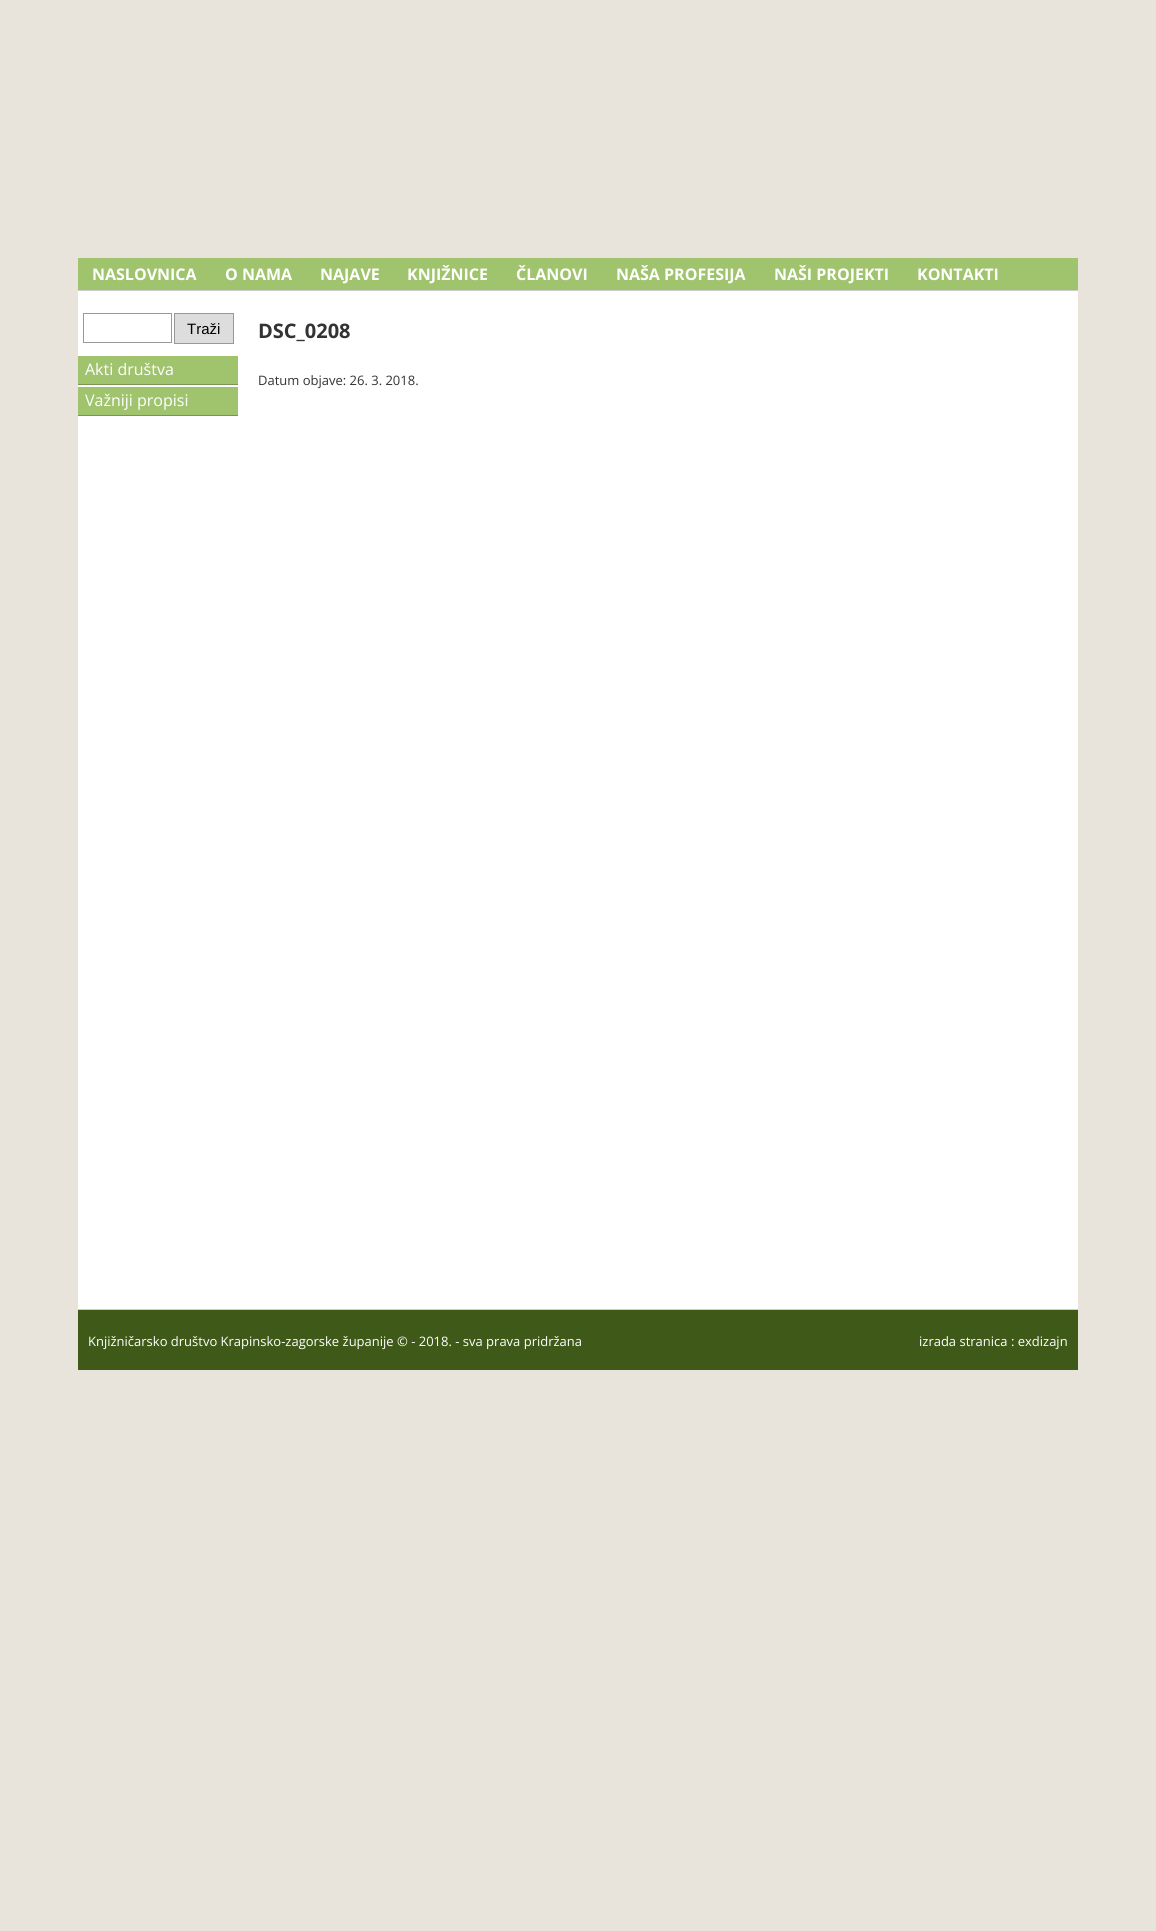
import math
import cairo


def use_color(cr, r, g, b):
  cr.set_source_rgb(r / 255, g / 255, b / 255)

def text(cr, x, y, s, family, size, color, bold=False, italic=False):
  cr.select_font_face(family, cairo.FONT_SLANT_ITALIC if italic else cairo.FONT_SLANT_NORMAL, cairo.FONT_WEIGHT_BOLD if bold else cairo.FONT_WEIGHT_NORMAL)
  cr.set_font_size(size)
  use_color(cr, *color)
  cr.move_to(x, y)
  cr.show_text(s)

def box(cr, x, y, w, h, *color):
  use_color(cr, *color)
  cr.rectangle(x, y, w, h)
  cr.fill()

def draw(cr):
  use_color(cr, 232, 228, 219)
  cr.paint()
  box(cr, 78, 258, 1000, 32, 160, 195, 109)
  box(cr, 78, 291, 1000, 1018, 255, 255, 255)
  box(cr, 78, 290, 1000, 1, 204, 204, 204)
  cr.rectangle(83.5, 313.5, 88, 29)
  use_color(cr, 153, 153, 153)
  cr.set_line_width(1)
  cr.stroke()
  use_color(cr, 221, 221, 221)
  cr.rectangle(174.5, 313.5, 59, 30)
  cr.fill_preserve()
  use_color(cr, 153, 153, 153)
  cr.stroke()
  box(cr, 78, 356, 160, 28, 160, 195, 109)
  box(cr, 78, 384, 160, 1, 121, 149, 81)
  box(cr, 78, 387, 160, 28, 160, 195, 109)
  box(cr, 78, 415, 160, 1, 121, 149, 81)
  box(cr, 78, 1310, 1000, 60, 63, 90, 24)
  box(cr, 78, 1309, 1000, 1, 204, 204, 204)
  text(cr, 92, 280, "NASLOVNICA", "Open Sans", 16, (255, 255, 255), bold=True)
  text(cr, 225, 280, "O NAMA", "Open Sans", 16, (255, 255, 255), bold=True)
  text(cr, 320, 280, "NAJAVE", "Open Sans", 16, (255, 255, 255), bold=True)
  text(cr, 407, 280, "KNJIŽNICE", "Open Sans", 16, (255, 255, 255), bold=True)
  text(cr, 516, 280, "ČLANOVI", "Open Sans", 16, (255, 255, 255), bold=True)
  text(cr, 616, 280, "NAŠA PROFESIJA", "Open Sans", 16, (255, 255, 255), bold=True)
  text(cr, 774, 280, "NAŠI PROJEKTI", "Open Sans", 16, (255, 255, 255), bold=True)
  text(cr, 917, 280, "KONTAKTI", "Open Sans", 16, (255, 255, 255), bold=True)
  text(cr, 187, 334, "Traži", "Liberation Sans", 15, (0, 0, 0))
  text(cr, 85, 375, "Akti društva", "Open Sans", 16, (255, 255, 255))
  text(cr, 85, 406, "Važniji propisi", "Open Sans", 16, (255, 255, 255))
  text(cr, 258, 338, "DSC_0208", "Open Sans", 20, (51, 51, 51), bold=True)
  text(cr, 258, 385, "Datum objave: 26. 3. 2018.", "Open Sans", 13, (51, 51, 51))
  text(cr, 88, 1346, "Knjižničarsko društvo Krapinsko-zagorske županije © - 2018. - sva prava pridržana", "Open Sans", 13, (255, 255, 255))
  text(cr, 919, 1346, "izrada stranica : exdizajn", "Open Sans", 13, (255, 255, 255))


surface = cairo.ImageSurface(cairo.FORMAT_RGB24, 1156, 1931)
cr = cairo.Context(surface)
options = cairo.FontOptions()
options.set_hint_metrics(cairo.HINT_METRICS_OFF)
options.set_hint_style(cairo.HINT_STYLE_NONE)
cr.set_font_options(options)
cr.set_miter_limit(4)
draw(cr)
surface.write_to_png("out.png")
